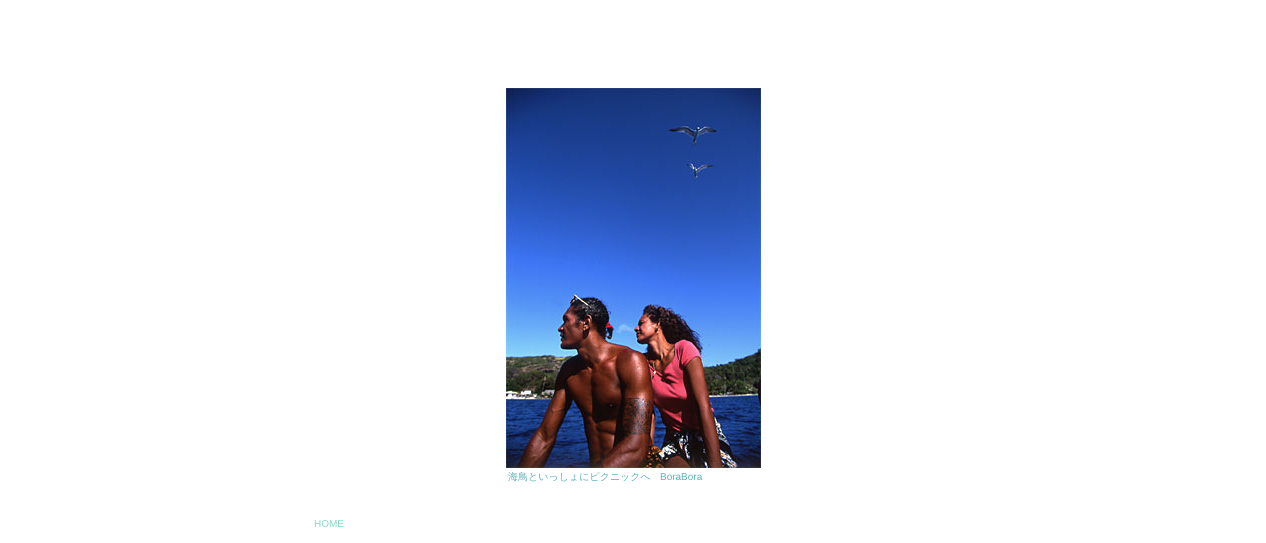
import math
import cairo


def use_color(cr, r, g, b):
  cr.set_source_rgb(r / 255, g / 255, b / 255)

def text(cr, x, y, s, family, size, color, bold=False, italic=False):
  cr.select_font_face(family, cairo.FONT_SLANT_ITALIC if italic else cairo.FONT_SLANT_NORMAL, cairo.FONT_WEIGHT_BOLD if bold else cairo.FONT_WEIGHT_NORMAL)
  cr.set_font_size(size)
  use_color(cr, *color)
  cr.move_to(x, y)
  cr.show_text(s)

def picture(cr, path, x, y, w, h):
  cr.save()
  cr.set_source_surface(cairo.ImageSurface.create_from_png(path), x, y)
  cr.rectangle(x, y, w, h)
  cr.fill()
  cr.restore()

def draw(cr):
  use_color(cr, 255, 255, 255)
  cr.paint()
  picture(cr, "img_01.png", 506, 88, 255, 380)
  text(cr, 508, 480, "海鳥といっしょにピクニックへ", "WenQuanYi Zen Hei Medium", 10, (90, 178, 181))
  text(cr, 660, 480, "BoraBora", "Liberation Sans", 10, (90, 178, 181))
  text(cr, 314, 527, "HOME", "Liberation Sans", 10, (132, 219, 194))


surface = cairo.ImageSurface(cairo.FORMAT_RGB24, 1266, 543)
cr = cairo.Context(surface)
options = cairo.FontOptions()
options.set_hint_metrics(cairo.HINT_METRICS_OFF)
options.set_hint_style(cairo.HINT_STYLE_NONE)
cr.set_font_options(options)
cr.set_miter_limit(4)
draw(cr)
surface.write_to_png("out.png")
